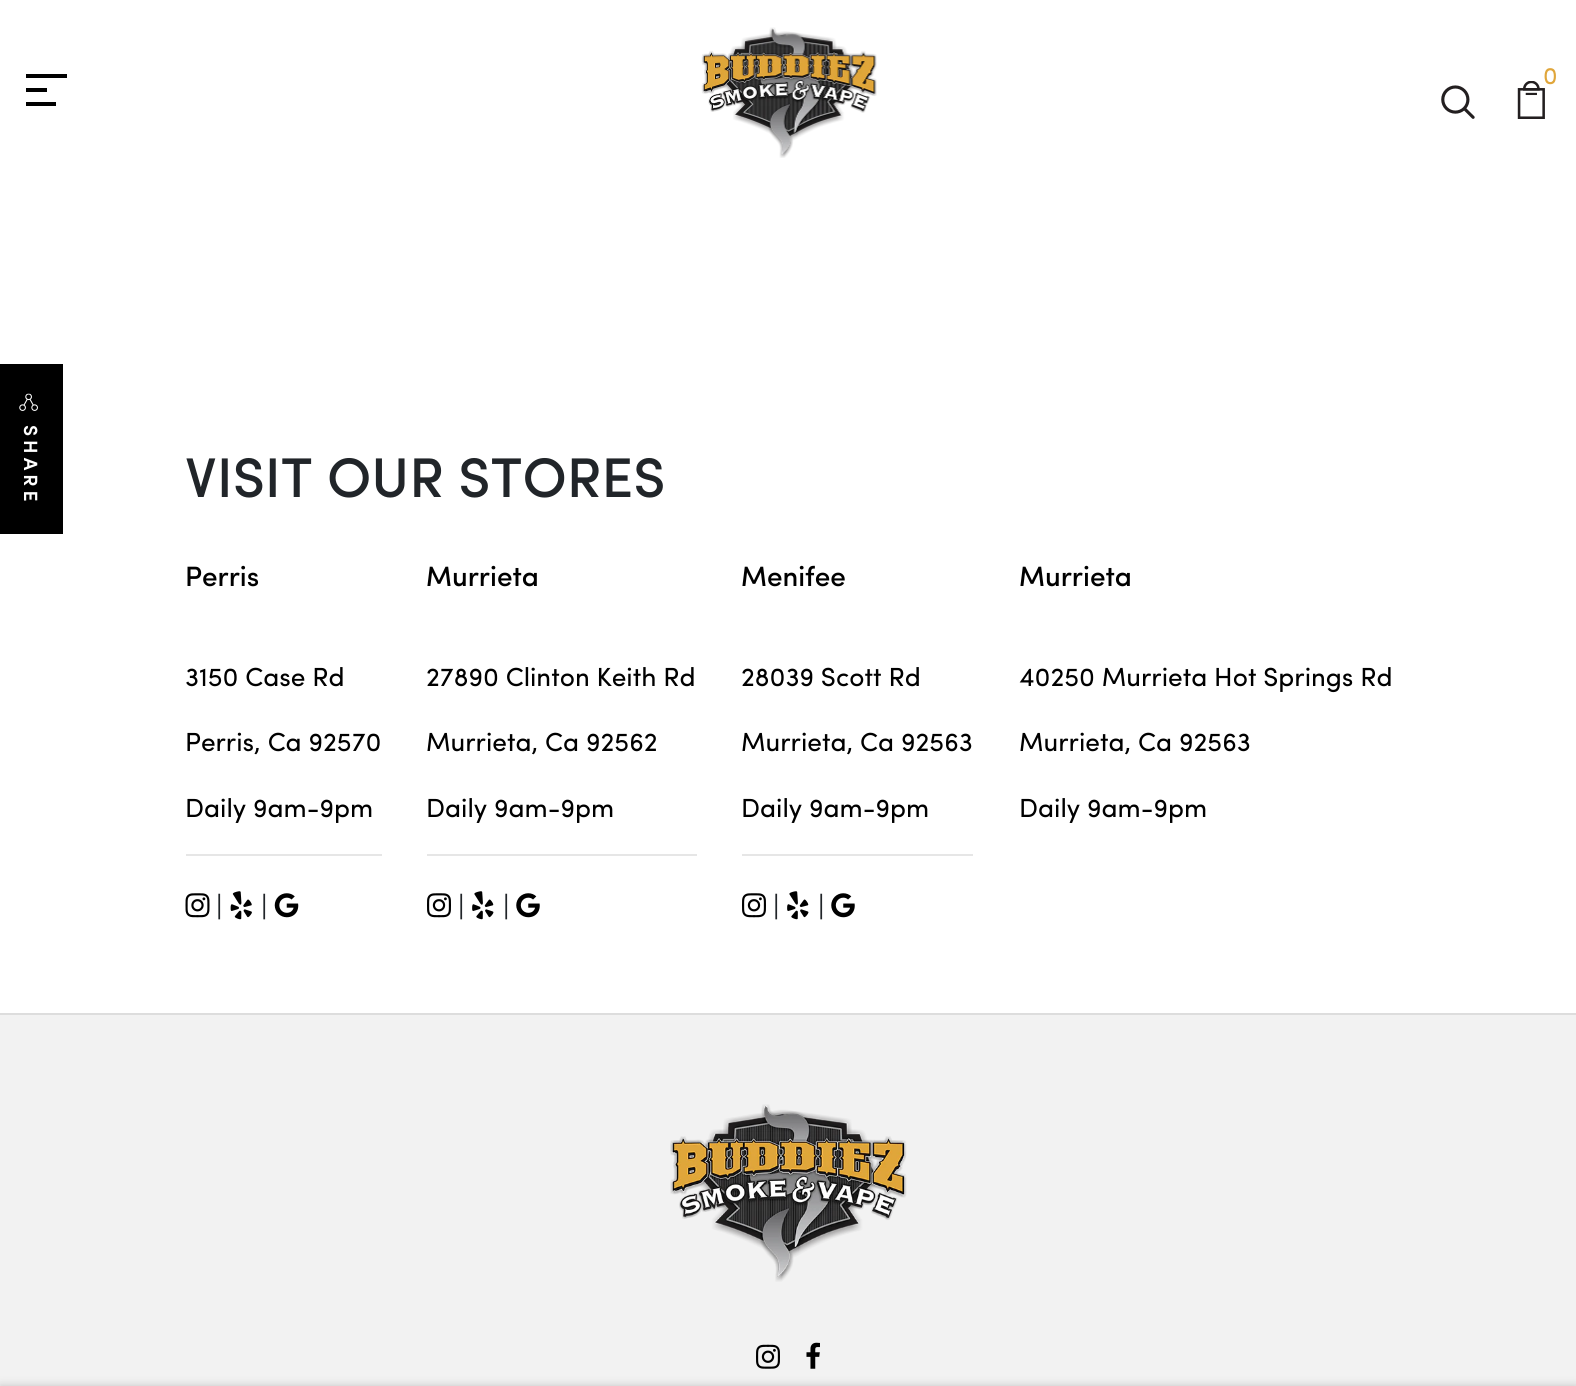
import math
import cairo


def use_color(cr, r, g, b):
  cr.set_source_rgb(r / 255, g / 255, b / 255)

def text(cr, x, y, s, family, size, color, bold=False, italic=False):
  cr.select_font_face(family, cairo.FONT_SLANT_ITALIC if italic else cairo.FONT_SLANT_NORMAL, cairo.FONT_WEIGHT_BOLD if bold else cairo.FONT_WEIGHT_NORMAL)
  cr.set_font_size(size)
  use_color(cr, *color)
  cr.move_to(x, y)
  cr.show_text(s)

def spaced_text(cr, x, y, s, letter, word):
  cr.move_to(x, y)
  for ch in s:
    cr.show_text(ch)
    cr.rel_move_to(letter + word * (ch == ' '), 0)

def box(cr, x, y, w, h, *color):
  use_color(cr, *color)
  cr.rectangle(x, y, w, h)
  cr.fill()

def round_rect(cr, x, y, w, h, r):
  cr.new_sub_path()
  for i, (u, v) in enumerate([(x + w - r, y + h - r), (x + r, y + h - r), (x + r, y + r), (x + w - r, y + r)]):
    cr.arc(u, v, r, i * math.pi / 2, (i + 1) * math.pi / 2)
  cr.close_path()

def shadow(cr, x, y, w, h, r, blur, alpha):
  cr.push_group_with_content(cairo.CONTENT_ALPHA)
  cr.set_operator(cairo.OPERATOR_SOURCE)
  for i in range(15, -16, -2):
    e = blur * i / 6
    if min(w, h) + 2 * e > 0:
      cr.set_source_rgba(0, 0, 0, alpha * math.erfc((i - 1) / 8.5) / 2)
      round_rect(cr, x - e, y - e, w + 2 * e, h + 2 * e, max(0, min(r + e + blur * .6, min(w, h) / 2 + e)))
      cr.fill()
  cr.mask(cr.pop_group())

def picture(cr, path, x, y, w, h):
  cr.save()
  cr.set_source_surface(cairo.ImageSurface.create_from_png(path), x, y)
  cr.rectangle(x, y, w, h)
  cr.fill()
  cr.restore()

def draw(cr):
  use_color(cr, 255, 255, 255)
  cr.paint()
  box(cr, 26, 74, 41, 4, 0, 0, 0)
  box(cr, 26, 88, 21, 4, 0, 0, 0)
  box(cr, 26, 102, 30, 4, 0, 0, 0)
  picture(cr, "img_01.png", 701, 27, 176, 131)
  picture(cr, "img_02.png", 1517, 81, 28, 38)
  picture(cr, "img_03.png", 1441, 85, 34, 34)
  box(cr, 0, 364, 63, 170, 0, 0, 0)
  picture(cr, "img_04.png", 19, 393, 19, 18)
  box(cr, 0, 1015, 1576, 371, 242, 242, 242)
  use_color(cr, 0, 0, 0)
  shadow(cr, 0, 1386, 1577, 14, 0, 4.5, 0.2)
  box(cr, 186, 854, 196, 2, 230, 230, 230)
  picture(cr, "img_05.png", 185, 893, 25, 25)
  picture(cr, "img_06.png", 230, 891, 22, 29)
  picture(cr, "img_07.png", 274, 893, 25, 25)
  box(cr, 427, 854, 270, 2, 230, 230, 230)
  picture(cr, "img_08.png", 427, 893, 24, 25)
  picture(cr, "img_09.png", 472, 891, 22, 29)
  picture(cr, "img_10.png", 516, 893, 24, 25)
  box(cr, 742, 854, 231, 2, 230, 230, 230)
  picture(cr, "img_08.png", 742, 893, 24, 25)
  picture(cr, "img_09.png", 787, 891, 22, 29)
  picture(cr, "img_10.png", 831, 893, 24, 25)
  box(cr, 0, 1013, 1576, 2, 221, 221, 221)
  picture(cr, "img_11.png", 670, 1104, 237, 178)
  picture(cr, "img_12.png", 756, 1344, 24, 25)
  picture(cr, "img_13.png", 806, 1342, 14, 27)
  text(cr, 1543, 84, "0", "Sofia", 24, (224, 166, 59))
  cr.select_font_face("Sofia SemiBold")
  cr.set_font_size(19.25)
  use_color(cr, 255, 255, 255)
  cr.save()
  cr.translate(24, 425)
  cr.rotate(90 * math.pi / 180)
  spaced_text(cr, 0, 0, "SHARE", 4, 0)
  cr.restore()
  text(cr, 185, 497, "VISIT OUR STORES", "Sofia Medium", 56, (33, 37, 41))
  text(cr, 185, 586, "Perris", "Sofia Medium", 28, (0, 0, 0))
  text(cr, 185, 686, "3150 Case Rd", "Sofia", 26.25, (0, 0, 0))
  text(cr, 185, 751, "Perris, Ca 92570", "Sofia", 26.25, (0, 0, 0))
  text(cr, 185, 817, "Daily 9am-9pm", "Sofia", 26.25, (0, 0, 0))
  text(cr, 216, 916, "|", "Sofia", 28, (33, 37, 41))
  text(cr, 261, 916, "|", "Sofia", 28, (33, 37, 41))
  text(cr, 426, 586, "Murrieta", "Sofia Medium", 28, (0, 0, 0))
  text(cr, 426, 686, "27890 Clinton Keith Rd", "Sofia", 26.25, (0, 0, 0))
  text(cr, 426, 751, "Murrieta, Ca 92562", "Sofia", 26.25, (0, 0, 0))
  text(cr, 426, 817, "Daily 9am-9pm", "Sofia", 26.25, (0, 0, 0))
  text(cr, 458, 916, "|", "Sofia", 28, (33, 37, 41))
  text(cr, 503, 916, "|", "Sofia", 28, (33, 37, 41))
  text(cr, 741, 586, "Menifee", "Sofia Medium", 28, (0, 0, 0))
  text(cr, 741, 686, "28039 Scott Rd", "Sofia", 26.25, (0, 0, 0))
  text(cr, 741, 751, "Murrieta, Ca 92563", "Sofia", 26.25, (0, 0, 0))
  text(cr, 741, 817, "Daily 9am-9pm", "Sofia", 26.25, (0, 0, 0))
  text(cr, 773, 916, "|", "Sofia", 28, (33, 37, 41))
  text(cr, 818, 916, "|", "Sofia", 28, (33, 37, 41))
  text(cr, 1019, 586, "Murrieta", "Sofia Medium", 28, (0, 0, 0))
  text(cr, 1019, 686, "40250 Murrieta Hot Springs Rd", "Sofia", 26.25, (0, 0, 0))
  text(cr, 1019, 751, "Murrieta, Ca 92563", "Sofia", 26.25, (0, 0, 0))
  text(cr, 1019, 817, "Daily 9am-9pm", "Sofia", 26.25, (0, 0, 0))


surface = cairo.ImageSurface(cairo.FORMAT_RGB24, 1576, 1386)
cr = cairo.Context(surface)
options = cairo.FontOptions()
options.set_hint_metrics(cairo.HINT_METRICS_OFF)
options.set_hint_style(cairo.HINT_STYLE_NONE)
cr.set_font_options(options)
cr.set_miter_limit(4)
draw(cr)
surface.write_to_png("out.png")
